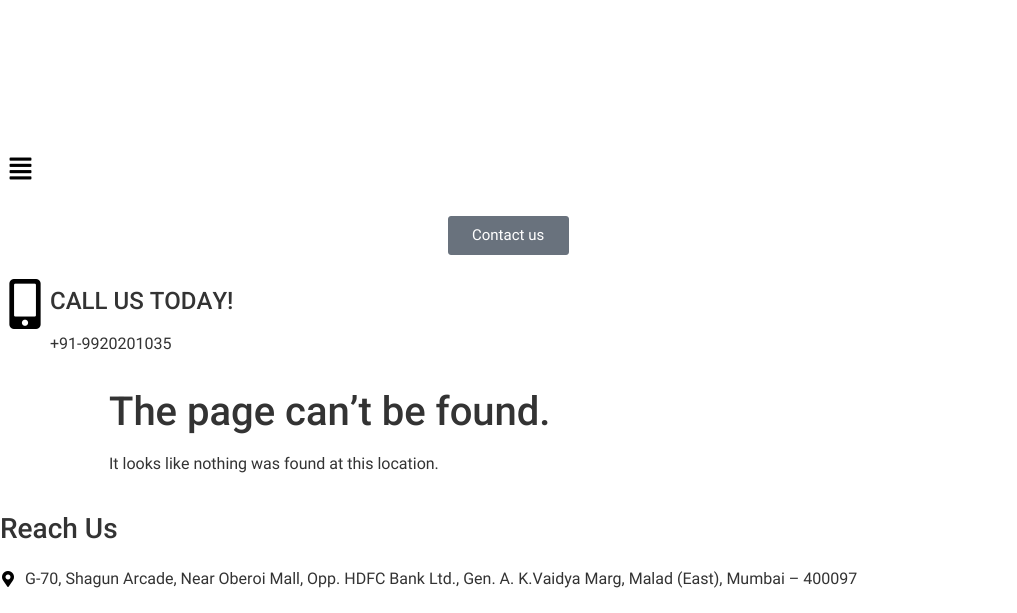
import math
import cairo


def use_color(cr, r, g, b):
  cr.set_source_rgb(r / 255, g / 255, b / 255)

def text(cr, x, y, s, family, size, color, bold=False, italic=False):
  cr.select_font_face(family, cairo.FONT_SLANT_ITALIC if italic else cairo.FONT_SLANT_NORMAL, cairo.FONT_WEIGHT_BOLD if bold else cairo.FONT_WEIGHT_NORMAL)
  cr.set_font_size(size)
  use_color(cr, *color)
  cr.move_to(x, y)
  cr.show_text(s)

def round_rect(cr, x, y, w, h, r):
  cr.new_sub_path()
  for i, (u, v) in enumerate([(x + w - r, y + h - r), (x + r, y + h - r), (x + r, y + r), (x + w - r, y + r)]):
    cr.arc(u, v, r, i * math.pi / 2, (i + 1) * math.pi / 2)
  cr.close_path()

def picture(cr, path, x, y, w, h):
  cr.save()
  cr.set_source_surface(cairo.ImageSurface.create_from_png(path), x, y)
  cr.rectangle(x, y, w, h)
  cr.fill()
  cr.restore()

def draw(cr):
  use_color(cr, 255, 255, 255)
  cr.paint()
  picture(cr, "img_01.png", 9, 157, 23, 23)
  use_color(cr, 105, 114, 125)
  round_rect(cr, 448, 216, 121, 39, 3)
  cr.fill()
  picture(cr, "img_02.png", 9, 279, 32, 50)
  picture(cr, "img_03.png", 2, 571, 12, 16)
  text(cr, 472, 240, "Contact us", "Roboto", 15, (255, 255, 255))
  text(cr, 50, 309, "CALL US TODAY!", "Roboto Medium", 24, (51, 51, 51))
  text(cr, 50, 349, "+91-9920201035", "Roboto", 16, (51, 51, 51))
  text(cr, 109, 425, "The page can’t be found.", "Roboto Medium", 40, (51, 51, 51))
  text(cr, 109, 469, "It looks like nothing was found at this location.", "Roboto", 16, (51, 51, 51))
  text(cr, 0, 538, "Reach Us", "Roboto Medium", 28, (51, 51, 51))
  text(cr, 25, 584, "G-70, Shagun Arcade, Near Oberoi Mall, Opp. HDFC Bank Ltd., Gen. A. K.Vaidya Marg, Malad (East), Mumbai – 400097", "Roboto", 16, (51, 51, 51))


surface = cairo.ImageSurface(cairo.FORMAT_RGB24, 1017, 613)
cr = cairo.Context(surface)
options = cairo.FontOptions()
options.set_hint_metrics(cairo.HINT_METRICS_OFF)
options.set_hint_style(cairo.HINT_STYLE_NONE)
cr.set_font_options(options)
cr.set_miter_limit(4)
draw(cr)
surface.write_to_png("out.png")
